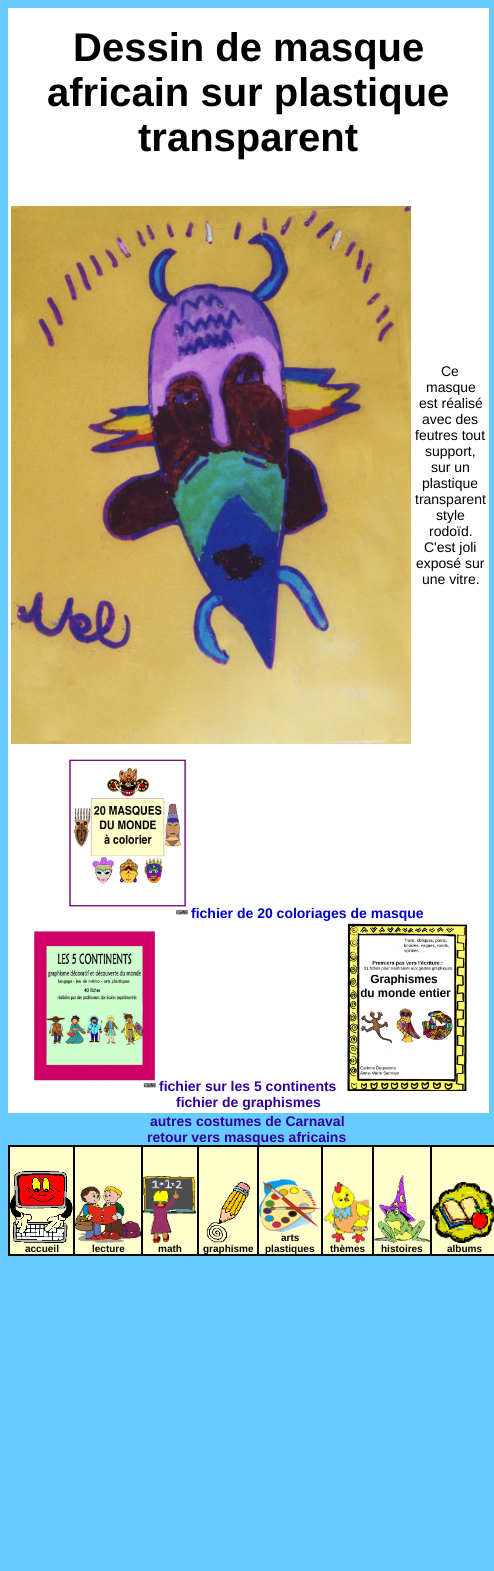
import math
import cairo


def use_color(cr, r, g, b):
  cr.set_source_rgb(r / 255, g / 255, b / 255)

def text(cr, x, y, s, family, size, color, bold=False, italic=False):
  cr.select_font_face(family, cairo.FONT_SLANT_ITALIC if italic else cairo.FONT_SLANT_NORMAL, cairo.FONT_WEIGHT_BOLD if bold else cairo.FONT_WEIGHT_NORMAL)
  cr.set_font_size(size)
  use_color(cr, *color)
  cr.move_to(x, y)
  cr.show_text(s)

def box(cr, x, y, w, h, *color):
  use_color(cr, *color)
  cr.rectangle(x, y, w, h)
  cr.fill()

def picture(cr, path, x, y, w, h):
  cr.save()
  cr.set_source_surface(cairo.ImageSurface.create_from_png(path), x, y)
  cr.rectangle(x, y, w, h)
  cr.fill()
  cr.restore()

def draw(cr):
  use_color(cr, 102, 204, 255)
  cr.paint()
  box(cr, 8, 8, 481, 1105, 255, 255, 255)
  picture(cr, "img_01.png", 11, 206, 400, 538)
  picture(cr, "img_02.png", 69, 759, 119, 156)
  picture(cr, "img_03.png", 34, 930, 122, 158)
  picture(cr, "img_04.png", 347, 923, 120, 168)
  box(cr, 10, 1147, 484, 107, 255, 255, 204)
  cr.rectangle(8.5, 1145.5, 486, 110)
  use_color(cr, 0, 0, 0)
  cr.set_line_width(1)
  cr.stroke()
  cr.rectangle(9.5, 1146.5, 64, 108)
  cr.stroke()
  picture(cr, "img_05.png", 10, 1171, 63, 72)
  cr.rectangle(74.5, 1146.5, 67, 108)
  cr.stroke()
  picture(cr, "img_06.png", 75, 1186, 66, 57)
  cr.rectangle(142.5, 1146.5, 55, 108)
  cr.stroke()
  picture(cr, "img_07.png", 143, 1176, 54, 67)
  cr.rectangle(198.5, 1146.5, 59, 108)
  cr.stroke()
  picture(cr, "img_08.png", 206, 1182, 44, 61)
  cr.rectangle(258.5, 1146.5, 63, 108)
  cr.stroke()
  picture(cr, "img_09.png", 259, 1179, 62, 53)
  cr.rectangle(322.5, 1146.5, 50, 108)
  cr.stroke()
  picture(cr, "img_10.png", 323, 1182, 49, 61)
  cr.rectangle(373.5, 1146.5, 57, 108)
  cr.stroke()
  picture(cr, "img_11.png", 374, 1175, 56, 68)
  cr.rectangle(431.5, 1146.5, 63, 108)
  cr.stroke()
  picture(cr, "img_12.png", 432, 1182, 62, 61)
  text(cr, 73, 61, "Dessin de masque", "Liberation Sans", 40, (0, 0, 0), bold=True)
  text(cr, 47, 106, "africain sur plastique", "Liberation Sans", 40, (0, 0, 0), bold=True)
  text(cr, 138, 151, "transparent", "Liberation Sans", 40, (0, 0, 0), bold=True)
  text(cr, 441, 376, "Ce", "Liberation Sans", 14, (0, 0, 0))
  text(cr, 426, 392, "masque", "Liberation Sans", 14, (0, 0, 0))
  text(cr, 419, 408, "est réalisé", "Liberation Sans", 14, (0, 0, 0))
  text(cr, 422, 424, "avec des", "Liberation Sans", 14, (0, 0, 0))
  text(cr, 415, 440, "feutres tout", "Liberation Sans", 14, (0, 0, 0))
  text(cr, 425, 456, "support,", "Liberation Sans", 14, (0, 0, 0))
  text(cr, 431, 472, "sur un", "Liberation Sans", 14, (0, 0, 0))
  text(cr, 422, 488, "plastique", "Liberation Sans", 14, (0, 0, 0))
  text(cr, 415, 504, "transparent", "Liberation Sans", 14, (0, 0, 0))
  text(cr, 436, 520, "style", "Liberation Sans", 14, (0, 0, 0))
  text(cr, 429, 536, "rodoïd.", "Liberation Sans", 14, (0, 0, 0))
  text(cr, 424, 552, "C'est joli", "Liberation Sans", 14, (0, 0, 0))
  text(cr, 416, 568, "exposé sur", "Liberation Sans", 14, (0, 0, 0))
  text(cr, 422, 584, "une vitre.", "Liberation Sans", 14, (0, 0, 0))
  text(cr, 191, 918, "fichier de 20 coloriages de masque", "Liberation Sans", 14, (0, 0, 204), bold=True)
  text(cr, 159, 1091, "fichier sur les 5 continents", "Liberation Sans", 14, (51, 0, 153), bold=True)
  text(cr, 176, 1107, "fichier de graphismes", "Liberation Sans", 14, (51, 0, 153), bold=True)
  text(cr, 150, 1126, "autres costumes de Carnaval", "Liberation Sans", 14, (51, 0, 153), bold=True)
  text(cr, 147, 1142, "retour vers masques africains", "Liberation Sans", 14, (51, 0, 153), bold=True)
  text(cr, 25, 1252, "accueil", "Liberation Sans", 10, (0, 0, 0), bold=True)
  text(cr, 92, 1252, "lecture", "Liberation Sans", 10, (0, 0, 0), bold=True)
  text(cr, 158, 1252, "math", "Liberation Sans", 10, (0, 0, 0), bold=True)
  text(cr, 203, 1252, "graphisme", "Liberation Sans", 10, (0, 0, 0), bold=True)
  text(cr, 281, 1241, "arts", "Liberation Sans", 10, (0, 0, 0), bold=True)
  text(cr, 265, 1252, "plastiques", "Liberation Sans", 10, (0, 0, 0), bold=True)
  text(cr, 330, 1252, "thèmes", "Liberation Sans", 10, (0, 0, 0), bold=True)
  text(cr, 381, 1252, "histoires", "Liberation Sans", 10, (0, 0, 0), bold=True)
  text(cr, 447, 1252, "albums", "Liberation Sans", 10, (0, 0, 0), bold=True)


surface = cairo.ImageSurface(cairo.FORMAT_RGB24, 494, 1571)
cr = cairo.Context(surface)
options = cairo.FontOptions()
options.set_hint_metrics(cairo.HINT_METRICS_OFF)
options.set_hint_style(cairo.HINT_STYLE_NONE)
cr.set_font_options(options)
cr.set_miter_limit(4)
draw(cr)
surface.write_to_png("out.png")
